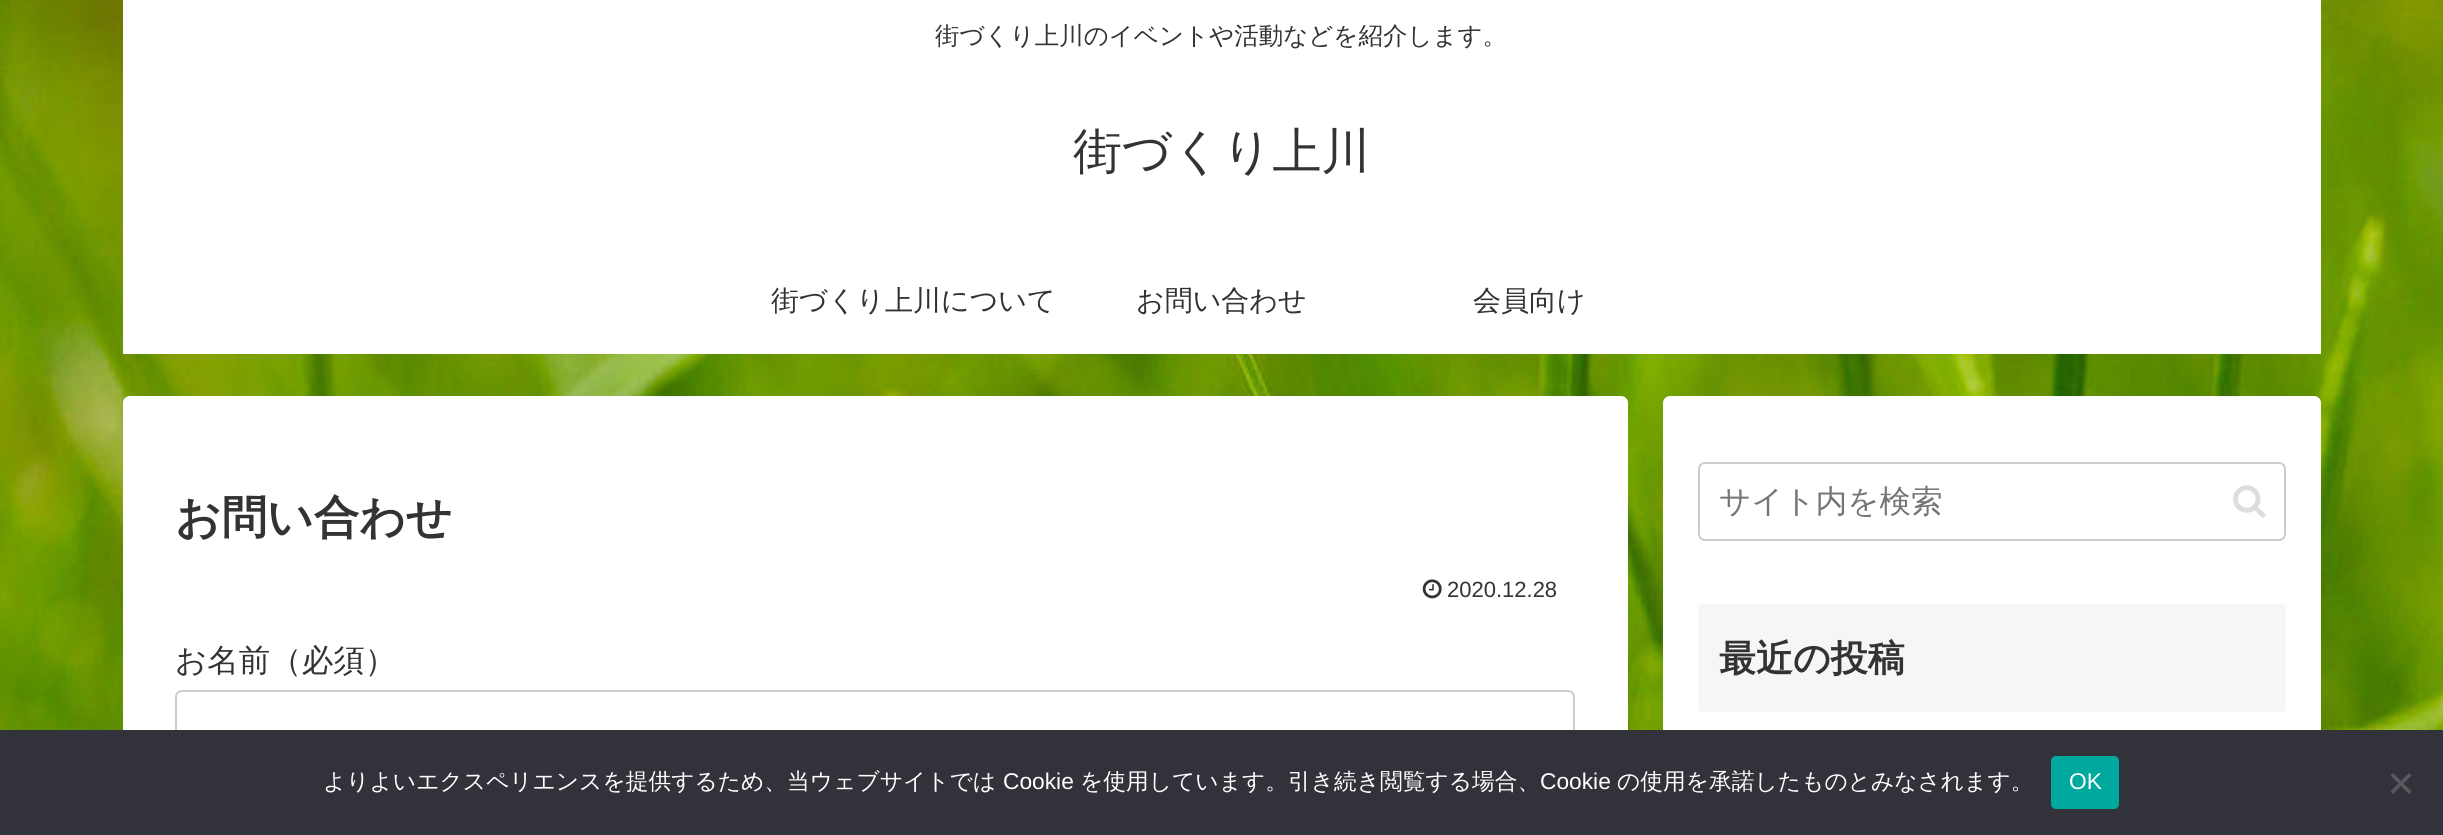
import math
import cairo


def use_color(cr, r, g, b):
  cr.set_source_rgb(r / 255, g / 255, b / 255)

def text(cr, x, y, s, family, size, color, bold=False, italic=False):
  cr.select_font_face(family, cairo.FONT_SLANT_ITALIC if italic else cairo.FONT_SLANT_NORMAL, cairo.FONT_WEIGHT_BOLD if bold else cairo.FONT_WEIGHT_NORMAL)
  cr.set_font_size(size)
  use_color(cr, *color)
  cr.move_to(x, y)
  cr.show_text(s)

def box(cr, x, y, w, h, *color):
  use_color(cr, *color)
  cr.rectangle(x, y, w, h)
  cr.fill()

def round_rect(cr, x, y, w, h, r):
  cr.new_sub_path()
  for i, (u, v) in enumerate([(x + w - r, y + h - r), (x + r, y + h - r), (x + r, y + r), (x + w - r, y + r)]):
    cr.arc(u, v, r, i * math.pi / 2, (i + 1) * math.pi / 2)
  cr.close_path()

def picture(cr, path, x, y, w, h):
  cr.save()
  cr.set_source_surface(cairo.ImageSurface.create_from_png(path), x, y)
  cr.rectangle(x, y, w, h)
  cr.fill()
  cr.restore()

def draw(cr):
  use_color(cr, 255, 255, 255)
  cr.paint()
  picture(cr, "img_01.png", 0, 0, 2443, 730)
  box(cr, 123, 0, 2198, 354, 255, 255, 255)
  round_rect(cr, 123, 396, 1505, 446, 7)
  cr.fill()
  picture(cr, "img_02.png", 1422, 579, 20, 20)
  round_rect(cr, 176, 691, 1398, 76, 6)
  use_color(cr, 204, 204, 204)
  cr.stroke()
  use_color(cr, 255, 255, 255)
  round_rect(cr, 1663, 396, 658, 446, 7)
  cr.fill()
  round_rect(cr, 1699, 463, 586, 77, 6)
  use_color(cr, 204, 204, 204)
  cr.stroke()
  picture(cr, "img_03.png", 2233, 485, 33, 33)
  use_color(cr, 245, 246, 247)
  round_rect(cr, 1698, 604, 588, 108, 4)
  cr.fill()
  box(cr, 0, 730, 2443, 105, 50, 50, 58)
  use_color(cr, 0, 169, 157)
  round_rect(cr, 2051, 756, 68, 53, 5)
  cr.fill()
  use_color(cr, 89, 89, 93)
  cr.new_path()
  cr.move_to(2409, 773)
  cr.line_to(2411.5, 775.5)
  cr.line_to(2393, 794)
  cr.line_to(2390.5, 791.5)
  cr.close_path()
  cr.fill()
  cr.new_path()
  cr.move_to(2390.5, 775.5)
  cr.line_to(2393, 773)
  cr.line_to(2411.5, 791.5)
  cr.line_to(2409, 794)
  cr.close_path()
  cr.fill()
  text(cr, 935, 44, "街づくり上川のイベントや活動などを紹介します。", "WenQuanYi Zen Hei Medium", 24.5, (51, 51, 51))
  text(cr, 1073, 168, "街づくり上川", "WenQuanYi Zen Hei Medium", 49, (51, 51, 51))
  text(cr, 771, 310, "街づくり上川について", "WenQuanYi Zen Hei Medium", 28, (51, 51, 51))
  text(cr, 1136, 310, "お問い合わせ", "WenQuanYi Zen Hei Medium", 28, (51, 51, 51))
  text(cr, 1473, 310, "会員向け", "WenQuanYi Zen Hei Medium", 28, (51, 51, 51))
  text(cr, 175, 533, "お問い合わせ", "WenQuanYi Zen Hei", 45.5, (51, 51, 51), bold=True)
  text(cr, 1447, 597, "2020.12.28", "Liberation Sans", 22, (51, 51, 51))
  text(cr, 175, 671, "お名前（必須）", "WenQuanYi Zen Hei Medium", 31.5, (51, 51, 51))
  text(cr, 1719, 512, "サイト内を検索", "WenQuanYi Zen Hei Medium", 31.5, (117, 117, 117))
  text(cr, 1719, 671, "最近の投稿", "WenQuanYi Zen Hei", 37, (51, 51, 51), bold=True)
  text(cr, 323, 789, "よりよいエクスペリエンスを提供するため、当ウェブサイトでは", "WenQuanYi Zen Hei Medium", 22.75, (255, 255, 255))
  text(cr, 1003, 789, "Cookie", "Liberation Sans", 22.75, (255, 255, 255))
  text(cr, 1080, 789, "を使用しています。引き続き閲覧する場合、", "WenQuanYi Zen Hei Medium", 22.75, (255, 255, 255))
  text(cr, 1540, 789, "Cookie", "Liberation Sans", 22.75, (255, 255, 255))
  text(cr, 1617, 789, "の使用を承諾したものとみなされます。", "WenQuanYi Zen Hei Medium", 22.75, (255, 255, 255))
  text(cr, 2069, 789, "OK", "Liberation Sans", 22.75, (255, 255, 255))


surface = cairo.ImageSurface(cairo.FORMAT_RGB24, 2443, 835)
cr = cairo.Context(surface)
options = cairo.FontOptions()
options.set_hint_metrics(cairo.HINT_METRICS_OFF)
options.set_hint_style(cairo.HINT_STYLE_NONE)
cr.set_font_options(options)
cr.set_miter_limit(4)
draw(cr)
surface.write_to_png("out.png")
